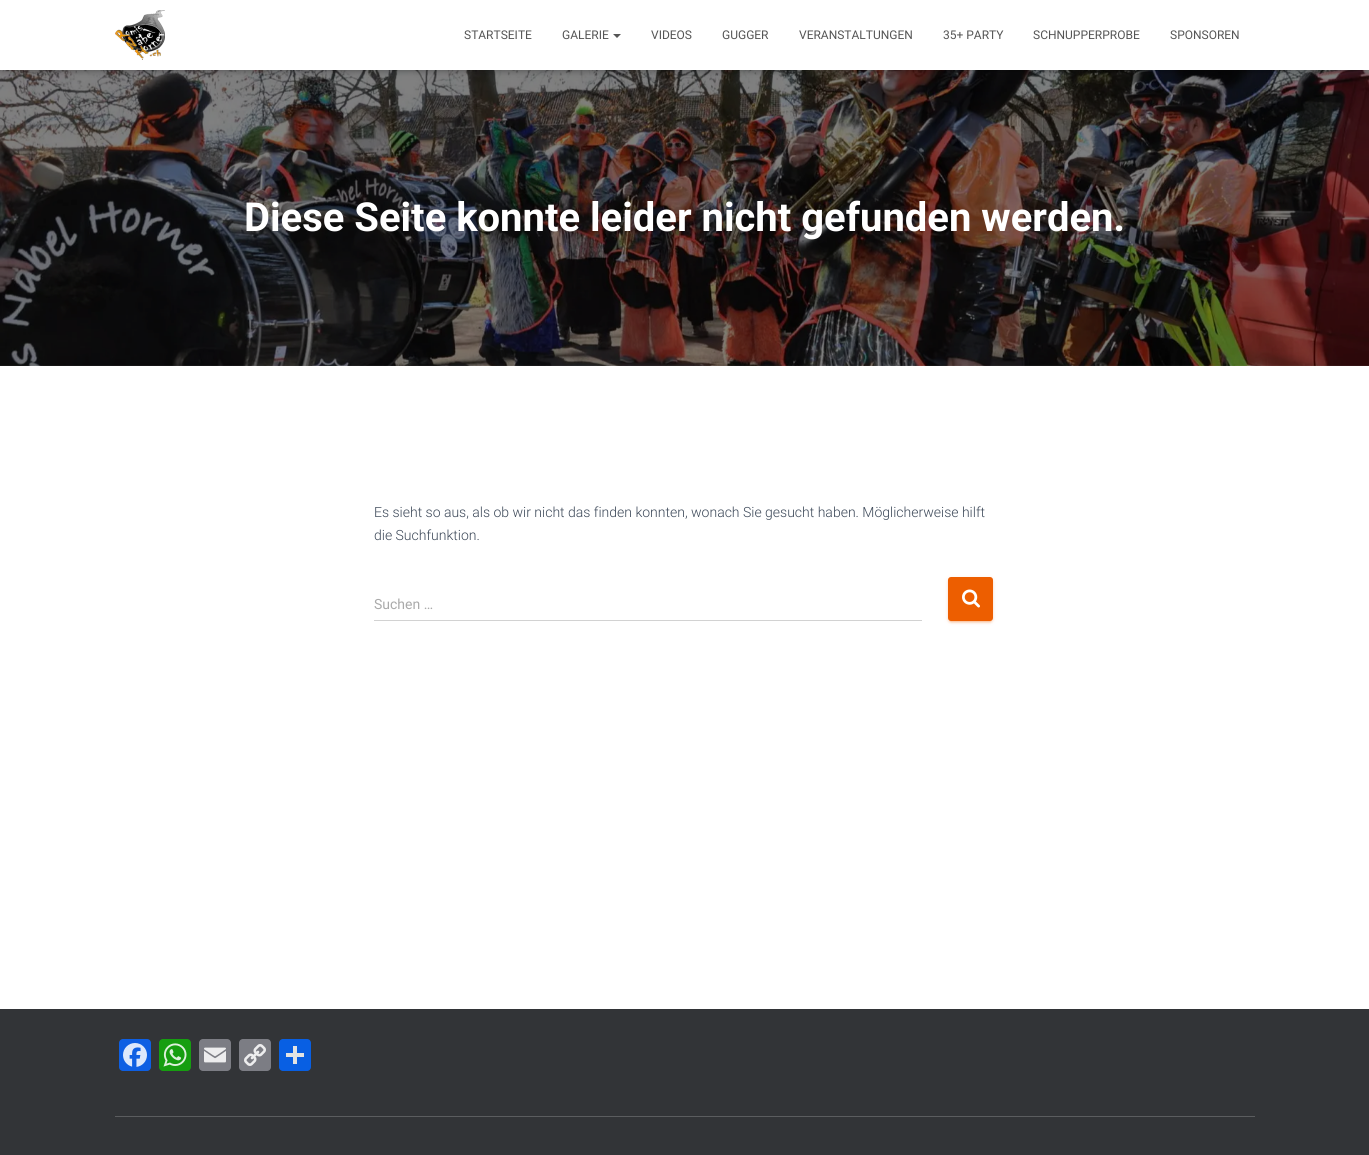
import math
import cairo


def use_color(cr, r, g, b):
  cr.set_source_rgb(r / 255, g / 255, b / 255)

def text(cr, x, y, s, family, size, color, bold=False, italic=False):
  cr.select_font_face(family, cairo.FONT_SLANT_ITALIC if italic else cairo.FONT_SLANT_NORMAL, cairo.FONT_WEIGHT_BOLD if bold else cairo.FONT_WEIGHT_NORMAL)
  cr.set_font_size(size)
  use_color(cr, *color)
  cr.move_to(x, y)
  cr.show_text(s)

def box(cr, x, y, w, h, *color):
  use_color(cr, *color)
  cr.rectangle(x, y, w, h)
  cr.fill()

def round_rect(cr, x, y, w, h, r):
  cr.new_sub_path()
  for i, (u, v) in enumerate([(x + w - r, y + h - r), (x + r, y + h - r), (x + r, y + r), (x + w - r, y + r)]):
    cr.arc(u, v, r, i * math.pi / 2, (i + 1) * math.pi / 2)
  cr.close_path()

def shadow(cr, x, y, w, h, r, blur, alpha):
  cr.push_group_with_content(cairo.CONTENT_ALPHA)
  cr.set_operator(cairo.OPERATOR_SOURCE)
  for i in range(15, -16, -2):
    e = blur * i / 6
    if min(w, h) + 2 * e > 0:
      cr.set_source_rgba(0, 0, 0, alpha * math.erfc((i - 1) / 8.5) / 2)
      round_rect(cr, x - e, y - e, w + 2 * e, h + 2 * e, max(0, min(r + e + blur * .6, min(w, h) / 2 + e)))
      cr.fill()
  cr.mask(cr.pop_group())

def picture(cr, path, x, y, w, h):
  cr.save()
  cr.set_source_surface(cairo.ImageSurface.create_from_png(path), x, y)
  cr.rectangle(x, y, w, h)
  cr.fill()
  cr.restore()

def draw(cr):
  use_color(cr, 255, 255, 255)
  cr.paint()
  picture(cr, "img_02.png", 0, 70, 1369, 296)
  use_color(cr, 0, 0, 0)
  shadow(cr, 2, 6, 1365, 66, 0, 2.5, 0.1)
  shadow(cr, 0, 1, 1369, 70, 0, 5, 0.12)
  shadow(cr, 6, 7, 1357, 58, 0, 5, 0.42)
  box(cr, 0, 0, 1369, 70, 255, 255, 255)
  picture(cr, "img_01.png", 115, 10, 50, 50)
  use_color(cr, 85, 85, 85)
  cr.new_path()
  cr.move_to(613, 34)
  cr.line_to(621, 34)
  cr.line_to(617, 38)
  cr.close_path()
  cr.fill()
  box(cr, 374, 620, 548, 1, 210, 210, 210)
  use_color(cr, 237, 94, 0)
  shadow(cr, 948, 578, 45, 44, 3, 2.5, 0.12)
  shadow(cr, 950, 582, 41, 40, 1, 0.5, 0.2)
  shadow(cr, 948, 579, 45, 44, 3, 1, 0.14)
  use_color(cr, 237, 94, 0)
  round_rect(cr, 948, 577, 45, 44, 3)
  cr.fill()
  picture(cr, "img_03.png", 962, 589, 18, 19)
  box(cr, 0, 1009, 1369, 146, 50, 52, 55)
  use_color(cr, 14, 95, 227)
  round_rect(cr, 119, 1039, 32, 32, 4)
  cr.fill()
  picture(cr, "img_04.png", 123, 1043, 24, 24)
  use_color(cr, 22, 158, 16)
  round_rect(cr, 159, 1039, 32, 32, 4)
  cr.fill()
  picture(cr, "img_05.png", 163, 1043, 24, 24)
  use_color(cr, 124, 125, 132)
  round_rect(cr, 199, 1039, 32, 32, 4)
  cr.fill()
  picture(cr, "img_06.png", 204, 1047, 22, 16)
  round_rect(cr, 239, 1039, 32, 32, 4)
  cr.fill()
  picture(cr, "img_07.png", 244, 1044, 22, 22)
  use_color(cr, 8, 95, 227)
  round_rect(cr, 279, 1039, 32, 32, 4)
  cr.fill()
  box(cr, 293, 1046, 4, 18, 226, 227, 227)
  box(cr, 286, 1053, 18, 4, 226, 227, 227)
  box(cr, 115, 1116, 1140, 1, 91, 93, 95)
  text(cr, 464, 39, "STARTSEITE", "Roboto", 12, (85, 85, 85))
  text(cr, 562, 39, "GALERIE", "Roboto", 12, (85, 85, 85))
  text(cr, 651, 39, "VIDEOS", "Roboto", 12, (85, 85, 85))
  text(cr, 722, 39, "GUGGER", "Roboto", 12, (85, 85, 85))
  text(cr, 799, 39, "VERANSTALTUNGEN", "Roboto", 12, (85, 85, 85))
  text(cr, 943, 39, "35+ PARTY", "Roboto", 12, (85, 85, 85))
  text(cr, 1033, 39, "SCHNUPPERPROBE", "Roboto", 12, (85, 85, 85))
  text(cr, 1170, 39, "SPONSOREN", "Roboto", 12, (85, 85, 85))
  text(cr, 244, 231, "Diese Seite konnte leider nicht gefunden werden.", "Roboto", 40, (255, 255, 255), bold=True)
  text(cr, 374, 517, "Es sieht so aus, als ob wir nicht das finden konnten, wonach Sie gesucht haben. Möglicherweise hilft", "Roboto Light", 14, (60, 72, 88))
  text(cr, 374, 540, "die Suchfunktion.", "Roboto Light", 14, (60, 72, 88))
  text(cr, 374, 609, "Suchen …", "Roboto", 14, (170, 170, 170))


surface = cairo.ImageSurface(cairo.FORMAT_RGB24, 1369, 1155)
cr = cairo.Context(surface)
options = cairo.FontOptions()
options.set_hint_metrics(cairo.HINT_METRICS_OFF)
options.set_hint_style(cairo.HINT_STYLE_NONE)
cr.set_font_options(options)
cr.set_miter_limit(4)
draw(cr)
surface.write_to_png("out.png")
